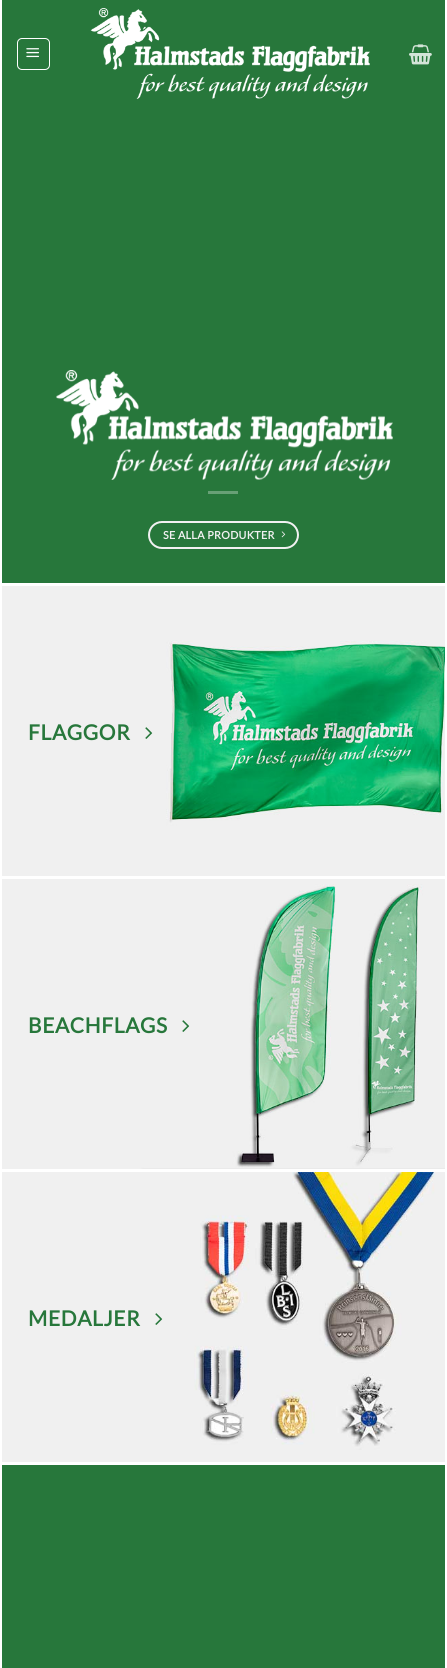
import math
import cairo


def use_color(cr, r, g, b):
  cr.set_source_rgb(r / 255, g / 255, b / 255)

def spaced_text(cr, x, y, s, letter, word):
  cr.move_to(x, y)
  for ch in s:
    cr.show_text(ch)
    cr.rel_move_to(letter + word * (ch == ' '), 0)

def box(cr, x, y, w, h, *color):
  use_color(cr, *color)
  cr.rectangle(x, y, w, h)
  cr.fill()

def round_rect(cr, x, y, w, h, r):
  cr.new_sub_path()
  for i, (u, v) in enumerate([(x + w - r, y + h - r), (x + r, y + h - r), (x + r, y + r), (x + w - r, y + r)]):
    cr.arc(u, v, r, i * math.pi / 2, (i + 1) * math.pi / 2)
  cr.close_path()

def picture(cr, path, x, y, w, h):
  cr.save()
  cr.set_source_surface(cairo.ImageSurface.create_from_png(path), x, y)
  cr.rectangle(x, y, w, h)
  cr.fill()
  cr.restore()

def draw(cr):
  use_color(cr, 255, 255, 255)
  cr.paint()
  box(cr, 2, 0, 443, 583, 39, 119, 59)
  round_rect(cr, 17.5, 38.5, 32, 31, 4.5)
  use_color(cr, 255, 255, 255)
  cr.set_line_width(1)
  cr.stroke()
  picture(cr, "img_01.png", 26, 48, 13, 10)
  picture(cr, "img_02.png", 90, 8, 280, 91)
  picture(cr, "img_03.png", 409, 44, 23, 21)
  picture(cr, "img_04.png", 56, 370, 337, 110)
  box(cr, 208, 491, 30, 3, 104, 160, 118)
  round_rect(cr, 149, 522, 149, 26, 13)
  use_color(cr, 241, 241, 241)
  cr.set_line_width(2)
  cr.stroke()
  picture(cr, "img_05.png", 281, 531, 5, 7)
  picture(cr, "img_06.png", 2, 586, 443, 290)
  picture(cr, "img_07.png", 145, 727, 8, 12)
  picture(cr, "img_08.png", 2, 879, 443, 290)
  picture(cr, "img_07.png", 182, 1020, 8, 12)
  picture(cr, "img_09.png", 2, 1172, 443, 290)
  picture(cr, "img_07.png", 155, 1313, 8, 12)
  box(cr, 2, 1465, 443, 203, 39, 119, 59)
  cr.select_font_face("Lato", cairo.FONT_SLANT_NORMAL, cairo.FONT_WEIGHT_BOLD)
  cr.set_font_size(10.75)
  use_color(cr, 241, 241, 241)
  spaced_text(cr, 163, 539, "SE ALLA PRODUKTER", 0.3, 0)
  cr.set_font_size(21)
  use_color(cr, 39, 119, 59)
  spaced_text(cr, 28, 740, "FLAGGOR", 0.6, 0)
  spaced_text(cr, 28, 1033, "BEACHFLAGS", 0.6, 0)
  spaced_text(cr, 28, 1326, "MEDALJER", 0.6, 0)


surface = cairo.ImageSurface(cairo.FORMAT_RGB24, 447, 1668)
cr = cairo.Context(surface)
options = cairo.FontOptions()
options.set_hint_metrics(cairo.HINT_METRICS_OFF)
options.set_hint_style(cairo.HINT_STYLE_NONE)
cr.set_font_options(options)
cr.set_miter_limit(4)
draw(cr)
surface.write_to_png("out.png")
